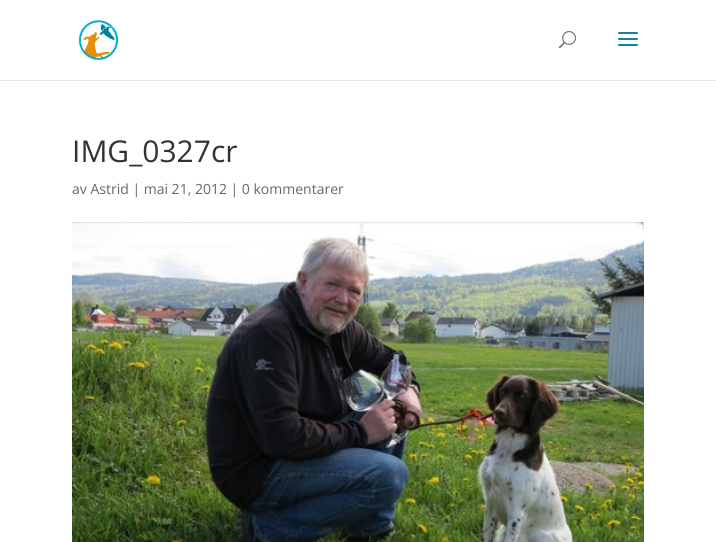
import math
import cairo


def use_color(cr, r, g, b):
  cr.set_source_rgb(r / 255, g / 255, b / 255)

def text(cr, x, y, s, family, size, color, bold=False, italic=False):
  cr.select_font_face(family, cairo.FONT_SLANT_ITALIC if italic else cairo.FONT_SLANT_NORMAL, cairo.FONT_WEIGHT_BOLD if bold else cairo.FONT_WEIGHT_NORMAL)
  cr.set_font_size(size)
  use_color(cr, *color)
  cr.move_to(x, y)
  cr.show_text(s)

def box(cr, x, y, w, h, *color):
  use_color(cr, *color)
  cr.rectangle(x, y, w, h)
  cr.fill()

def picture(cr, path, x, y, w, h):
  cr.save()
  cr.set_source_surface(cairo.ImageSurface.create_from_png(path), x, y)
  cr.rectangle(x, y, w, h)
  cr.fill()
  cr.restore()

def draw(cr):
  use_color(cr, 255, 255, 255)
  cr.paint()
  box(cr, 0, 80, 716, 1, 230, 230, 230)
  picture(cr, "img_01.png", 78, 20, 41, 40)
  picture(cr, "img_02.png", 559, 31, 17, 18)
  picture(cr, "img_03.png", 618, 32, 20, 14)
  picture(cr, "img_04.png", 72, 222, 572, 320)
  text(cr, 72, 162, "IMG_0327cr", "Open Sans", 30, (51, 51, 51))
  text(cr, 72, 194, "av Astrid | mai 21, 2012 | 0 kommentarer", "Open Sans", 14, (102, 102, 102))


surface = cairo.ImageSurface(cairo.FORMAT_RGB24, 716, 542)
cr = cairo.Context(surface)
options = cairo.FontOptions()
options.set_hint_metrics(cairo.HINT_METRICS_OFF)
options.set_hint_style(cairo.HINT_STYLE_NONE)
cr.set_font_options(options)
cr.set_miter_limit(4)
draw(cr)
surface.write_to_png("out.png")
